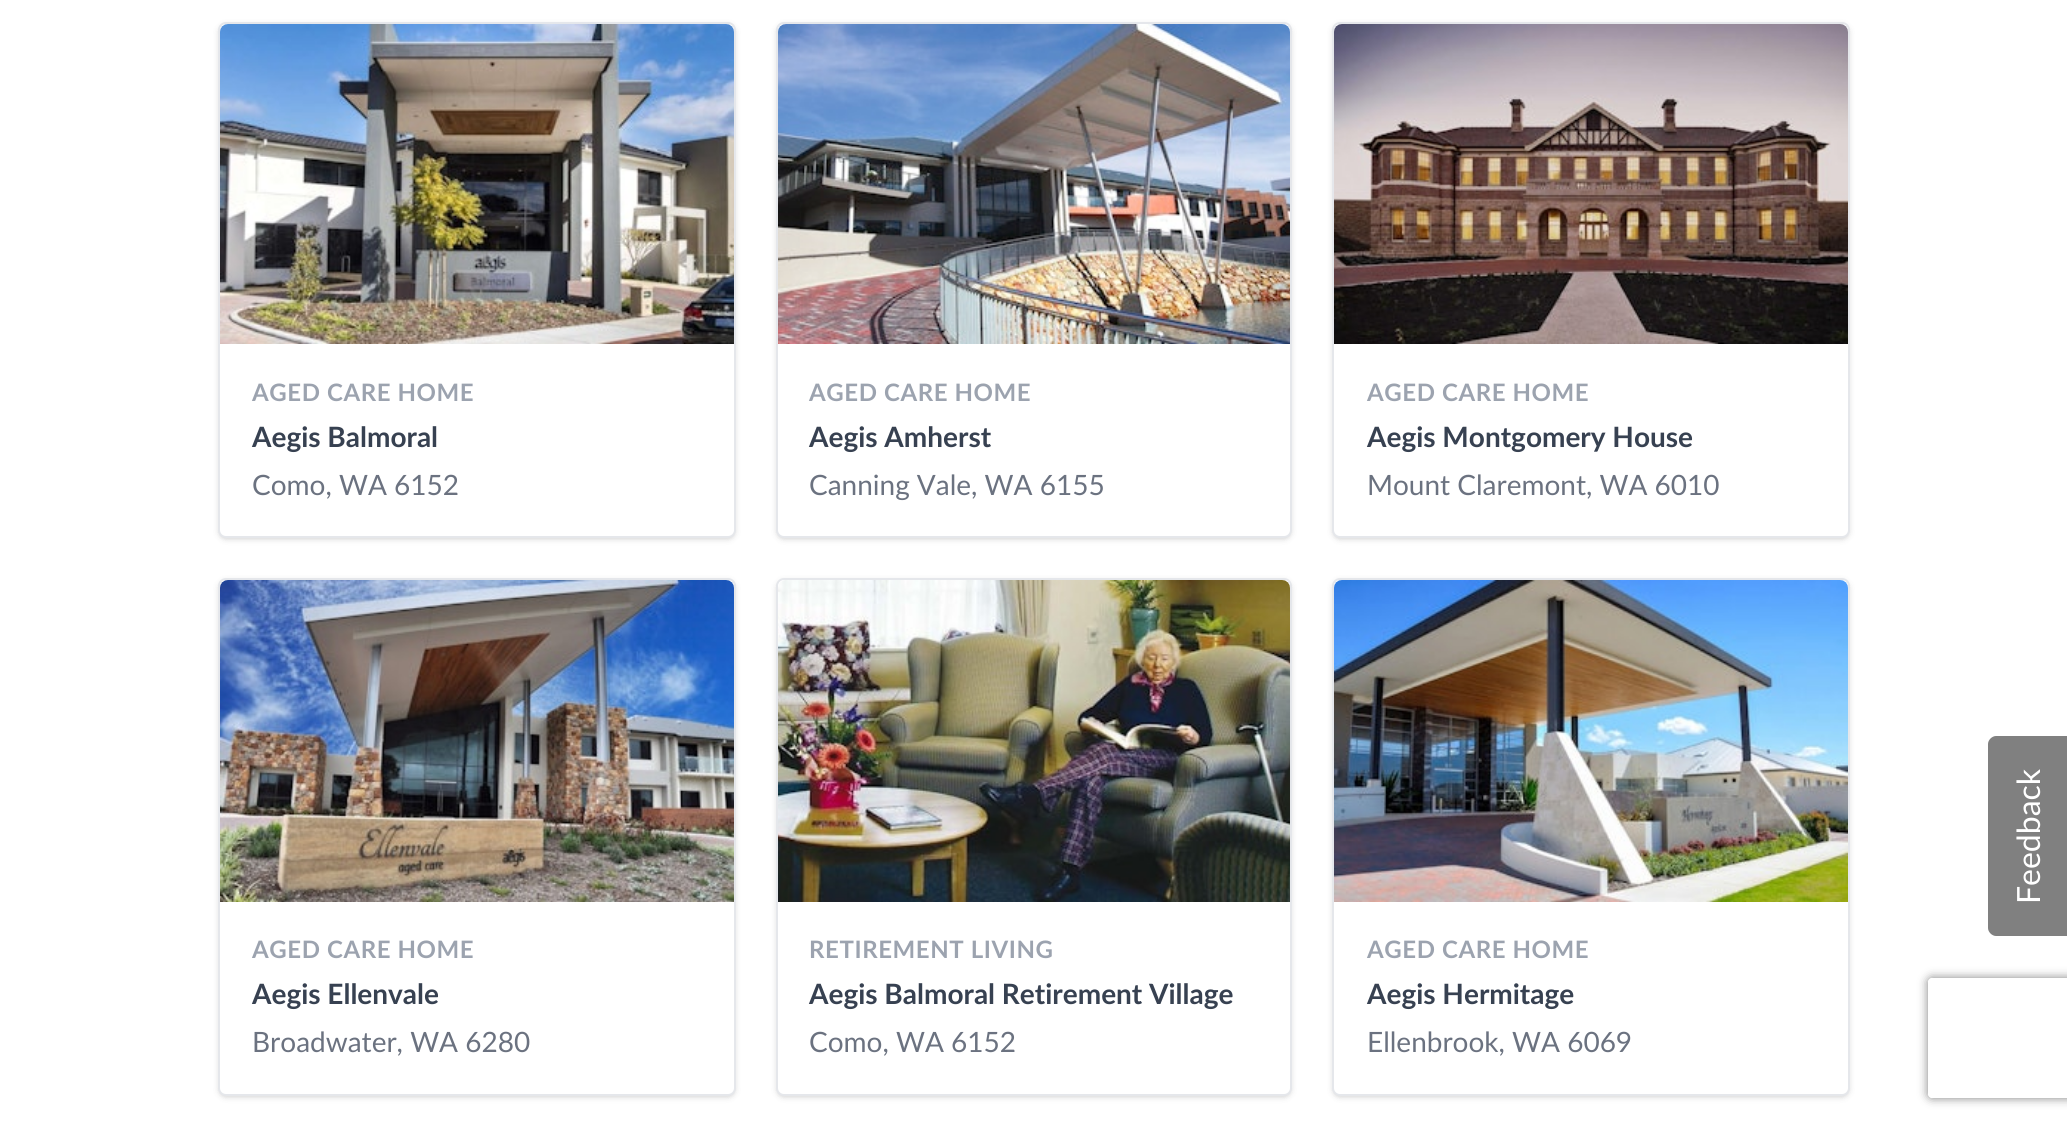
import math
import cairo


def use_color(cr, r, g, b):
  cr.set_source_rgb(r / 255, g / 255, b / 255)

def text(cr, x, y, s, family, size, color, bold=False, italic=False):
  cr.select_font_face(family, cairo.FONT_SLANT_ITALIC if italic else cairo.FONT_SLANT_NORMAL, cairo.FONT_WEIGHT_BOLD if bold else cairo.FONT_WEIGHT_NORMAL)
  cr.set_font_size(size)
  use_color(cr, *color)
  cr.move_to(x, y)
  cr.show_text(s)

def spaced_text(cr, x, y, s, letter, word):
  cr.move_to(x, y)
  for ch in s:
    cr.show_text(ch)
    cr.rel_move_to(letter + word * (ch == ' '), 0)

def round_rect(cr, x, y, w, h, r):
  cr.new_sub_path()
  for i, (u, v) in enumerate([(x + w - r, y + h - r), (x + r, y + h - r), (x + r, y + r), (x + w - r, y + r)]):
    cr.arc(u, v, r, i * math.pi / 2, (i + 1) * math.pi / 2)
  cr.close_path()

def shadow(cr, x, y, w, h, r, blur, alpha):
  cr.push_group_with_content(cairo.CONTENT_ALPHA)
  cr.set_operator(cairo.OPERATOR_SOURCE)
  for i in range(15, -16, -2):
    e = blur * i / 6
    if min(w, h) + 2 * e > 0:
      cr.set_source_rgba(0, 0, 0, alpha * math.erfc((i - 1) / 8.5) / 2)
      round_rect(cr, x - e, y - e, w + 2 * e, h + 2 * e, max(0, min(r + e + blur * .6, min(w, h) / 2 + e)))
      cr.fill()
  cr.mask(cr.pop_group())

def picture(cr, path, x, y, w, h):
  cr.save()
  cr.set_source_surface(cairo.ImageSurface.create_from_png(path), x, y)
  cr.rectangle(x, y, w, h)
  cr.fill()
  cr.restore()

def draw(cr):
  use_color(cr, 255, 255, 255)
  cr.paint()
  use_color(cr, 0, 0, 0)
  shadow(cr, 220, 26, 514, 512, 6, 2, 0.1)
  shadow(cr, 218, 24, 518, 516, 8, 3, 0.1)
  use_color(cr, 255, 255, 255)
  round_rect(cr, 219, 23, 516, 514, 7)
  cr.fill_preserve()
  use_color(cr, 229, 231, 235)
  cr.stroke()
  picture(cr, "img_01.png", 220, 24, 514, 320)
  use_color(cr, 0, 0, 0)
  shadow(cr, 778, 26, 512, 512, 6, 2, 0.1)
  shadow(cr, 776, 24, 516, 516, 8, 3, 0.1)
  use_color(cr, 255, 255, 255)
  round_rect(cr, 777, 23, 514, 514, 7)
  cr.fill_preserve()
  use_color(cr, 229, 231, 235)
  cr.stroke()
  picture(cr, "img_02.png", 778, 24, 512, 320)
  use_color(cr, 0, 0, 0)
  shadow(cr, 1334, 26, 514, 512, 6, 2, 0.1)
  shadow(cr, 1332, 24, 518, 516, 8, 3, 0.1)
  use_color(cr, 255, 255, 255)
  round_rect(cr, 1333, 23, 516, 514, 7)
  cr.fill_preserve()
  use_color(cr, 229, 231, 235)
  cr.stroke()
  picture(cr, "img_03.png", 1334, 24, 514, 320)
  use_color(cr, 0, 0, 0)
  shadow(cr, 220, 582, 514, 514, 6, 2, 0.1)
  shadow(cr, 218, 580, 518, 518, 8, 3, 0.1)
  use_color(cr, 255, 255, 255)
  round_rect(cr, 219, 579, 516, 516, 7)
  cr.fill_preserve()
  use_color(cr, 229, 231, 235)
  cr.stroke()
  picture(cr, "img_04.png", 220, 580, 514, 322)
  use_color(cr, 0, 0, 0)
  shadow(cr, 778, 582, 512, 514, 6, 2, 0.1)
  shadow(cr, 776, 580, 516, 518, 8, 3, 0.1)
  use_color(cr, 255, 255, 255)
  round_rect(cr, 777, 579, 514, 516, 7)
  cr.fill_preserve()
  use_color(cr, 229, 231, 235)
  cr.stroke()
  picture(cr, "img_05.png", 778, 580, 512, 322)
  use_color(cr, 0, 0, 0)
  shadow(cr, 1334, 582, 514, 514, 6, 2, 0.1)
  shadow(cr, 1332, 580, 518, 518, 8, 3, 0.1)
  use_color(cr, 255, 255, 255)
  round_rect(cr, 1333, 579, 516, 516, 7)
  cr.fill_preserve()
  use_color(cr, 229, 231, 235)
  cr.stroke()
  picture(cr, "img_06.png", 1334, 580, 514, 322)
  use_color(cr, 128, 128, 128)
  cr.new_path()
  cr.move_to(1988, 928)
  cr.line_to(1988, 744)
  cr.curve_to(1988, 740, 1992, 736, 1996, 736)
  cr.line_to(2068, 736)
  cr.line_to(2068, 936)
  cr.line_to(1996, 936)
  cr.curve_to(1992, 936, 1988, 932, 1988, 928)
  cr.close_path()
  cr.fill()
  cr.save()
  cr.set_fill_rule(cairo.FILL_RULE_EVEN_ODD)
  cr.new_path()
  cr.move_to(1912, 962)
  cr.line_to(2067, 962)
  cr.line_to(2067, 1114)
  cr.line_to(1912, 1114)
  cr.close_path()
  cr.move_to(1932, 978)
  cr.line_to(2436, 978)
  cr.curve_to(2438, 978, 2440, 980, 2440, 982)
  cr.line_to(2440, 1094)
  cr.curve_to(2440, 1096, 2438, 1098, 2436, 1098)
  cr.line_to(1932, 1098)
  cr.curve_to(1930, 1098, 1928, 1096, 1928, 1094)
  cr.line_to(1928, 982)
  cr.curve_to(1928, 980, 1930, 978, 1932, 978)
  cr.close_path()
  cr.clip()
  use_color(cr, 128, 128, 128)
  shadow(cr, 1928, 978, 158, 120, 4, 5, 1)
  cr.restore()
  cr.select_font_face("Lato", cairo.FONT_SLANT_NORMAL, cairo.FONT_WEIGHT_BOLD)
  cr.set_font_size(24)
  use_color(cr, 156, 163, 175)
  spaced_text(cr, 252, 401, "AGED CARE HOME", 0.6, 0)
  text(cr, 252, 447, "Aegis Balmoral", "Lato", 28, (55, 65, 81), bold=True)
  text(cr, 252, 495, "Como, WA 6152", "Lato", 28, (107, 114, 128))
  cr.select_font_face("Lato", cairo.FONT_SLANT_NORMAL, cairo.FONT_WEIGHT_BOLD)
  cr.set_font_size(24)
  use_color(cr, 156, 163, 175)
  spaced_text(cr, 809, 401, "AGED CARE HOME", 0.6, 0)
  text(cr, 809, 447, "Aegis Amherst", "Lato", 28, (55, 65, 81), bold=True)
  text(cr, 809, 495, "Canning Vale, WA 6155", "Lato", 28, (107, 114, 128))
  cr.select_font_face("Lato", cairo.FONT_SLANT_NORMAL, cairo.FONT_WEIGHT_BOLD)
  cr.set_font_size(24)
  use_color(cr, 156, 163, 175)
  spaced_text(cr, 1367, 401, "AGED CARE HOME", 0.6, 0)
  text(cr, 1367, 447, "Aegis Montgomery House", "Lato", 28, (55, 65, 81), bold=True)
  text(cr, 1367, 495, "Mount Claremont, WA 6010", "Lato", 28, (107, 114, 128))
  cr.select_font_face("Lato", cairo.FONT_SLANT_NORMAL, cairo.FONT_WEIGHT_BOLD)
  cr.set_font_size(24)
  use_color(cr, 156, 163, 175)
  spaced_text(cr, 252, 958, "AGED CARE HOME", 0.6, 0)
  text(cr, 252, 1004, "Aegis Ellenvale", "Lato", 28, (55, 65, 81), bold=True)
  text(cr, 252, 1052, "Broadwater, WA 6280", "Lato", 28, (107, 114, 128))
  cr.select_font_face("Lato", cairo.FONT_SLANT_NORMAL, cairo.FONT_WEIGHT_BOLD)
  cr.set_font_size(24)
  use_color(cr, 156, 163, 175)
  spaced_text(cr, 809, 958, "RETIREMENT LIVING", 0.6, 0)
  text(cr, 809, 1004, "Aegis Balmoral Retirement Village", "Lato", 28, (55, 65, 81), bold=True)
  text(cr, 809, 1052, "Como, WA 6152", "Lato", 28, (107, 114, 128))
  cr.select_font_face("Lato", cairo.FONT_SLANT_NORMAL, cairo.FONT_WEIGHT_BOLD)
  cr.set_font_size(24)
  use_color(cr, 156, 163, 175)
  spaced_text(cr, 1367, 958, "AGED CARE HOME", 0.6, 0)
  text(cr, 1367, 1004, "Aegis Hermitage", "Lato", 28, (55, 65, 81), bold=True)
  text(cr, 1367, 1052, "Ellenbrook, WA 6069", "Lato", 28, (107, 114, 128))
  cr.save()
  cr.translate(2040, 904)
  cr.rotate(-90 * math.pi / 180)
  text(cr, 0, 0, "Feedback", "Lato", 32, (255, 255, 255))
  cr.restore()


surface = cairo.ImageSurface(cairo.FORMAT_RGB24, 2067, 1126)
cr = cairo.Context(surface)
options = cairo.FontOptions()
options.set_hint_metrics(cairo.HINT_METRICS_OFF)
options.set_hint_style(cairo.HINT_STYLE_NONE)
cr.set_font_options(options)
cr.set_miter_limit(4)
draw(cr)
surface.write_to_png("out.png")
